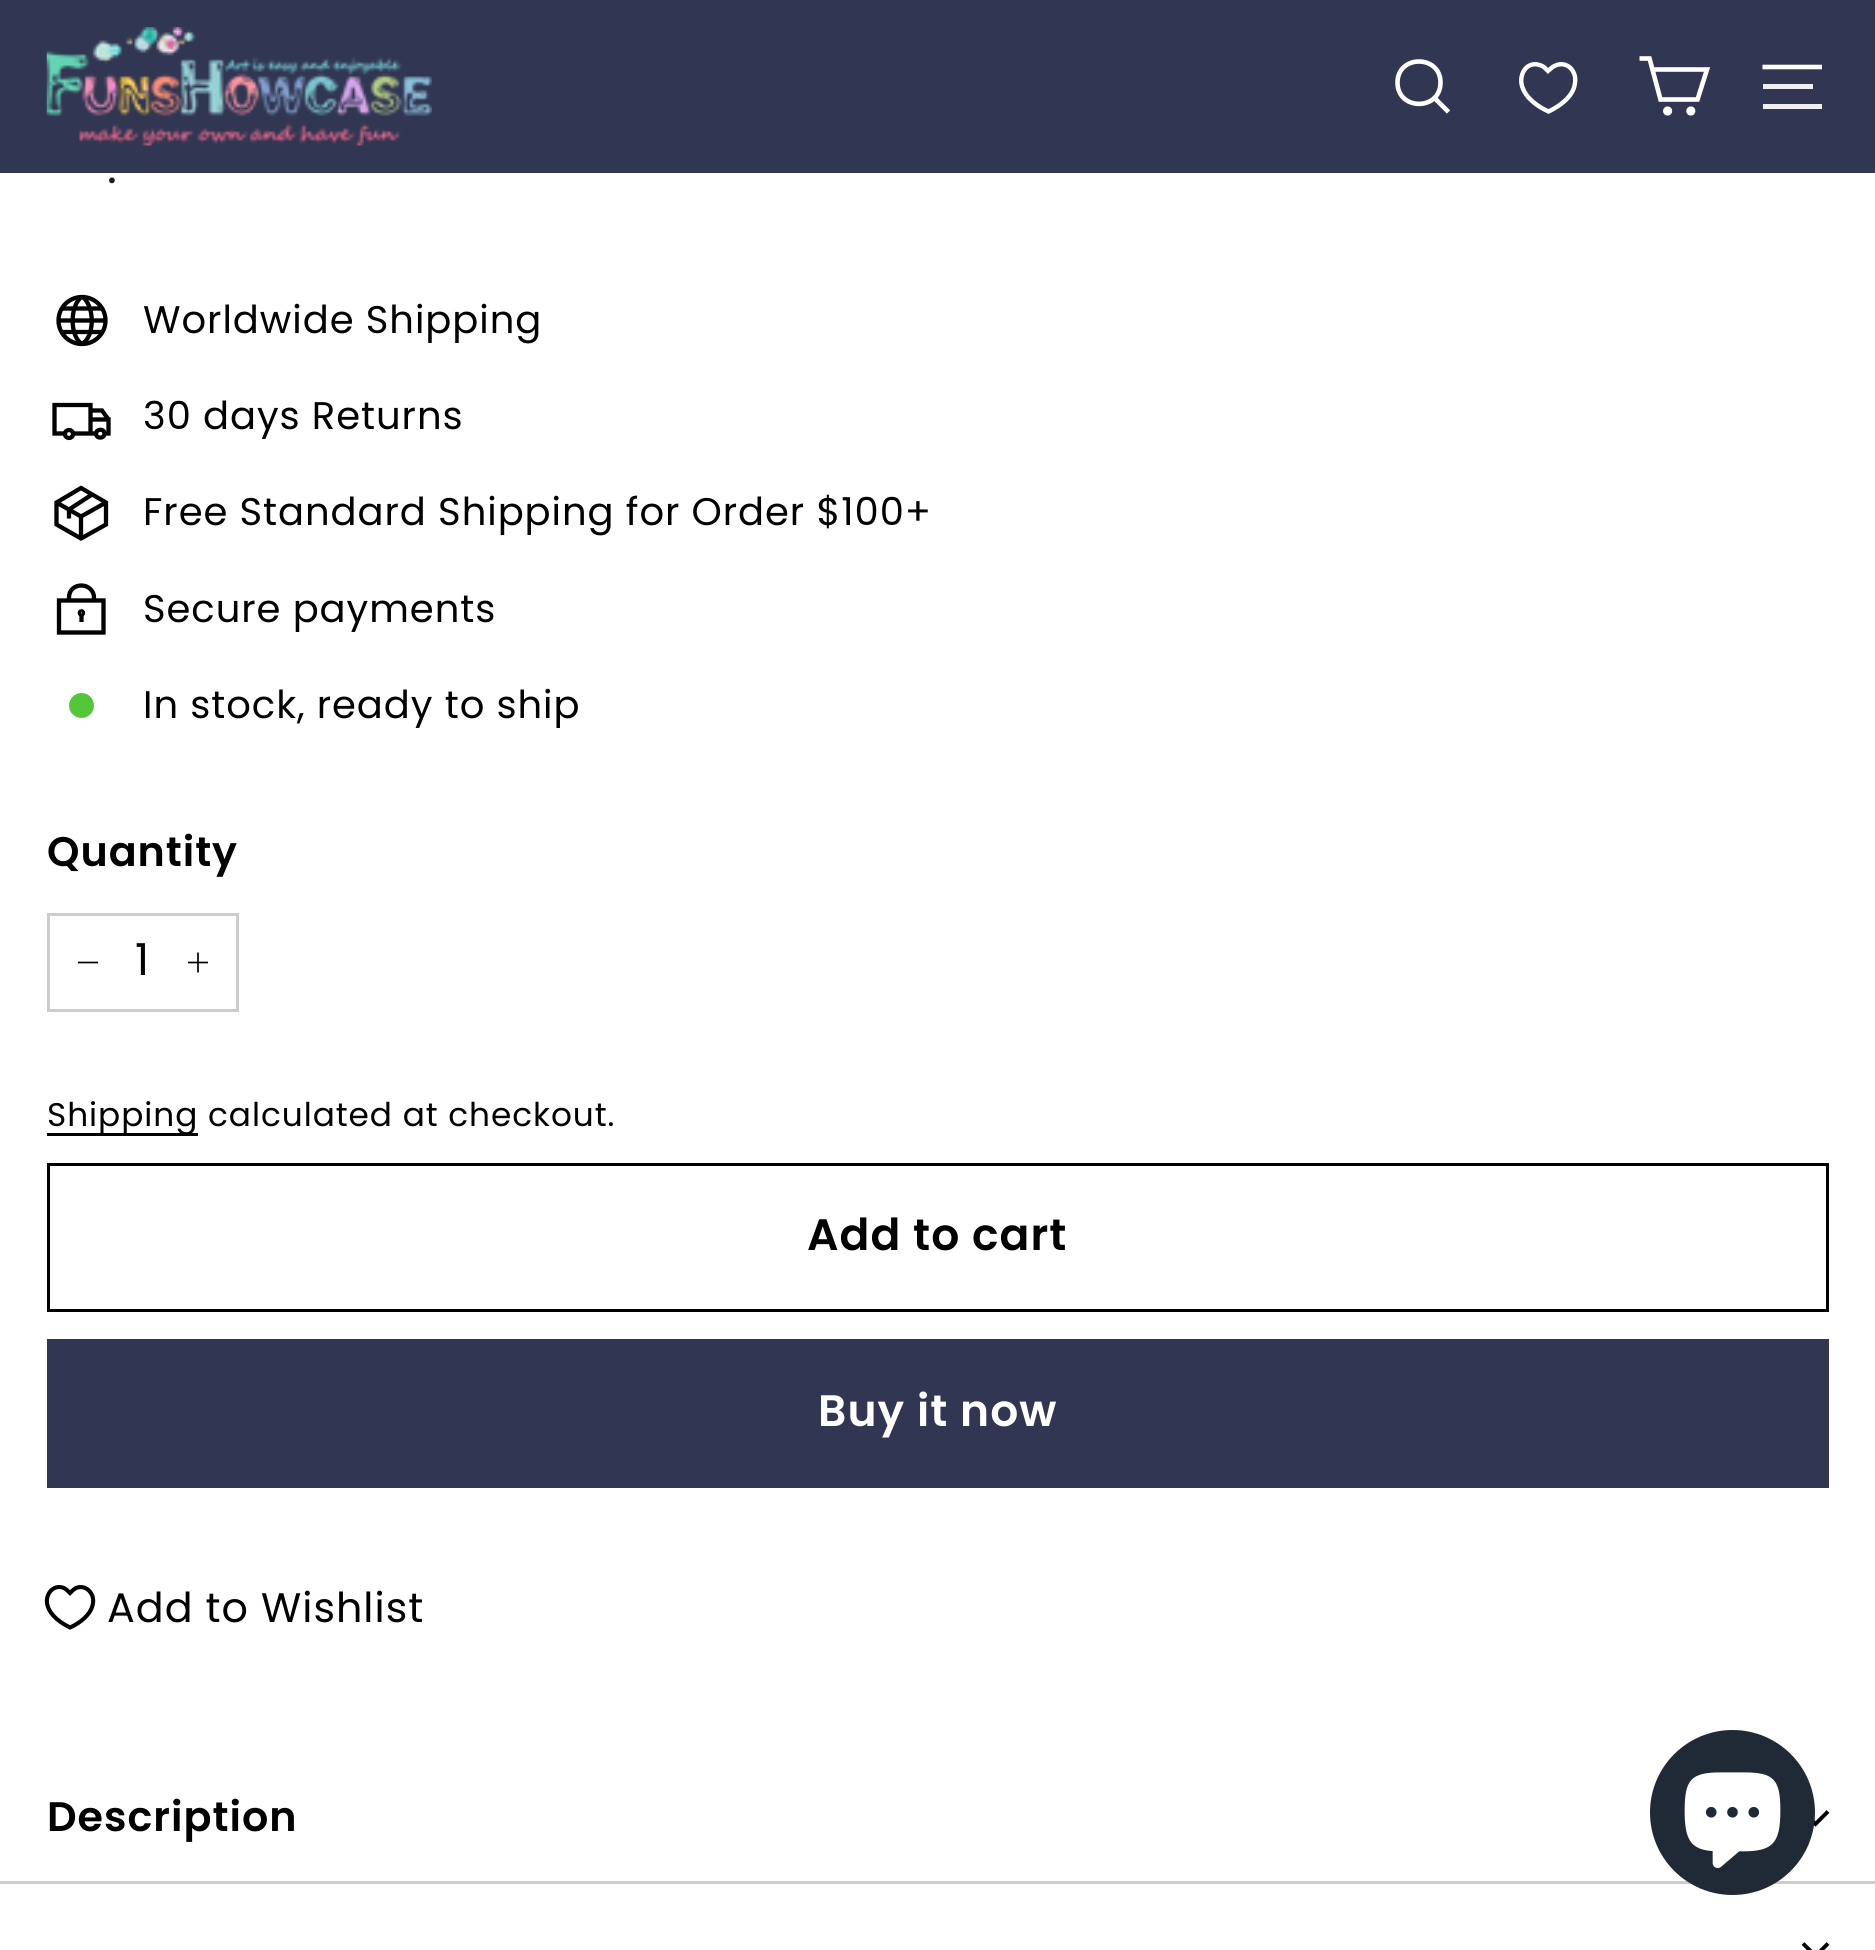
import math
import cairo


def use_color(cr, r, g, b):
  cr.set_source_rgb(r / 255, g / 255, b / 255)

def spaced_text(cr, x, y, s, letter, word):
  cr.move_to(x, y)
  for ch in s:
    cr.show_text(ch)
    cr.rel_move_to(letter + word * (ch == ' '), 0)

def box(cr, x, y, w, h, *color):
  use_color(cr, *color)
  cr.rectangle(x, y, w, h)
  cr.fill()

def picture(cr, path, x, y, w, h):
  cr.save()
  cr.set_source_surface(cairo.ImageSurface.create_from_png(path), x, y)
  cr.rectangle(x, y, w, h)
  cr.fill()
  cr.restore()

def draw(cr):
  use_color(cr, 255, 255, 255)
  cr.paint()
  box(cr, 0, 0, 1875, 173, 49, 54, 82)
  picture(cr, "img_01.png", 46, 27, 386, 119)
  cr.new_path()
  cr.move_to(1440.5, 82.5)
  cr.curve_to(1440.5, 111, 1397.5, 111, 1397.5, 82.5)
  cr.curve_to(1397.5, 54.5, 1440.5, 54.5, 1440.5, 82.5)
  cr.close_path()
  cr.move_to(1448.5, 112)
  cr.line_to(1434.5, 98)
  use_color(cr, 255, 255, 255)
  cr.set_line_width(4.6)
  cr.stroke()
  cr.new_path()
  cr.move_to(1548.5, 111.5)
  cr.curve_to(1537.5, 106.5, 1525.5, 98, 1522, 86)
  cr.curve_to(1518.5, 73.5, 1527.5, 60, 1541, 65.5)
  cr.curve_to(1544, 66.5, 1546, 69, 1548, 71)
  cr.curve_to(1550.5, 69, 1552.5, 66.5, 1555.5, 65.5)
  cr.curve_to(1567, 60.5, 1577, 71, 1575, 83)
  cr.curve_to(1573.5, 96.5, 1560, 106, 1548.5, 111.5)
  cr.close_path()
  cr.set_line_width(4.4)
  cr.stroke()
  cr.new_path()
  cr.move_to(1652.5, 69.5)
  cr.line_to(1707, 69.5)
  cr.line_to(1697.5, 99.5)
  cr.line_to(1660.5, 99.5)
  cr.line_to(1649.5, 58.5)
  cr.line_to(1639.5, 58.5)
  cr.set_line_width(4.6)
  cr.stroke()
  cr.arc(1667.6, 111, 2.3, 0, 2 * math.pi)
  cr.stroke()
  cr.arc(1690.8, 111, 2.3, 0, 2 * math.pi)
  cr.stroke()
  cr.new_path()
  cr.move_to(1762.5, 67)
  cr.line_to(1822, 67)
  cr.stroke()
  box(cr, 1763, 84, 50, 5, 239, 239, 241)
  box(cr, 1763, 104, 59, 5, 239, 239, 241)
  cr.arc(82, 320.5, 23.5, 0, 2 * math.pi)
  use_color(cr, 0, 0, 0)
  cr.set_line_width(4.3)
  cr.stroke()
  cr.new_path()
  cr.move_to(62, 308.5)
  cr.line_to(102.5, 308.5)
  cr.move_to(58.5, 320.5)
  cr.line_to(106, 320.5)
  cr.move_to(62, 332)
  cr.line_to(102.5, 332)
  cr.move_to(82, 296.5)
  cr.curve_to(69.5, 305.5, 69.5, 336.5, 82, 344)
  cr.move_to(82, 296.5)
  cr.curve_to(95, 305.5, 95, 336.5, 82, 344)
  cr.stroke()
  cr.new_path()
  cr.move_to(65, 433.5)
  cr.line_to(54.5, 433.5)
  cr.line_to(54.5, 405)
  cr.line_to(90.5, 405)
  cr.line_to(90.5, 433.5)
  cr.line_to(73, 433.5)
  cr.move_to(96, 433.5)
  cr.line_to(90.5, 433.5)
  cr.line_to(90.5, 419.5)
  cr.line_to(108.5, 419.5)
  cr.line_to(108.5, 433.5)
  cr.line_to(104, 433.5)
  cr.move_to(108.5, 419.5)
  cr.line_to(102, 410.5)
  cr.line_to(90.5, 410.5)
  cr.stroke()
  cr.arc(69, 434, 4, 0, 2 * math.pi)
  cr.stroke()
  cr.new_path()
  cr.move_to(96, 433.5)
  cr.curve_to(96.5, 428.5, 104.5, 428.5, 104.5, 433.5)
  cr.curve_to(104.5, 439, 96, 439, 96, 433.5)
  cr.stroke()
  cr.new_path()
  cr.move_to(81, 538.5)
  cr.line_to(56.5, 524.5)
  cr.line_to(56.5, 502.5)
  cr.line_to(81, 488)
  cr.line_to(106, 502.5)
  cr.line_to(106, 524.5)
  cr.close_path()
  cr.move_to(81, 538.5)
  cr.line_to(81, 516.5)
  cr.line_to(106, 502.5)
  cr.move_to(81, 516.5)
  cr.line_to(56.5, 502.5)
  cr.move_to(92, 494.5)
  cr.line_to(69, 509.5)
  cr.line_to(69, 518.5)
  cr.stroke()
  cr.new_path()
  cr.move_to(69, 600.5)
  cr.line_to(69, 597.5)
  cr.curve_to(69, 590, 74.5, 585.5, 81.5, 585.5)
  cr.curve_to(88.5, 585.5, 94, 591, 94, 597.5)
  cr.line_to(94, 600.5)
  cr.move_to(59, 600.5)
  cr.line_to(103.5, 600.5)
  cr.line_to(103.5, 632.5)
  cr.line_to(59, 632.5)
  cr.close_path()
  cr.move_to(81.5, 614.5)
  cr.line_to(81.5, 622)
  cr.stroke()
  cr.arc(81.4, 612.9, 1.6, 0, 2 * math.pi)
  cr.stroke()
  use_color(cr, 84, 198, 58)
  cr.arc(81.5, 705.5, 12.5, 0, 2 * math.pi)
  cr.fill()
  cr.rectangle(48.5, 914.5, 189, 96)
  use_color(cr, 204, 204, 204)
  cr.set_line_width(3)
  cr.stroke()
  cr.new_path()
  cr.move_to(98, 962.5)
  cr.line_to(78, 962.5)
  use_color(cr, 0, 0, 0)
  cr.set_line_width(1.7)
  cr.stroke()
  cr.new_path()
  cr.move_to(198, 952.5)
  cr.line_to(198, 972.5)
  cr.move_to(208, 962.5)
  cr.line_to(188, 962.5)
  cr.stroke()
  box(cr, 47, 1133, 151, 3, 0, 0, 0)
  cr.rectangle(48.5, 1164.5, 1779, 146)
  cr.set_line_width(3)
  cr.stroke()
  box(cr, 47, 1339, 1782, 149, 49, 54, 82)
  cr.new_path()
  cr.move_to(70, 1627.5)
  cr.curve_to(61, 1623, 50.5, 1616, 47.5, 1605.5)
  cr.curve_to(44.5, 1595.5, 52.5, 1583.5, 64, 1588)
  cr.curve_to(66.5, 1589.5, 68, 1591, 70, 1593)
  cr.curve_to(72, 1591, 73.5, 1589.5, 76, 1588)
  cr.curve_to(86, 1584, 94.5, 1593.5, 93, 1603)
  cr.curve_to(91.5, 1614.5, 80, 1623, 70, 1627.5)
  cr.close_path()
  use_color(cr, 0, 0, 0)
  cr.set_line_width(4.1)
  cr.stroke()
  box(cr, 0, 1881, 1875, 3, 204, 204, 204)
  cr.new_path()
  cr.move_to(1803, 1811.5)
  cr.line_to(1815.5, 1824)
  cr.line_to(1828, 1811.5)
  use_color(cr, 0, 0, 0)
  cr.set_line_width(3.9)
  cr.stroke()
  cr.new_path()
  cr.move_to(1803, 1943.5)
  cr.line_to(1815.5, 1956)
  cr.line_to(1828, 1943.5)
  cr.stroke()
  use_color(cr, 32, 42, 54)
  cr.arc(1732.5, 1812.5, 82.5, 0, 2 * math.pi)
  cr.fill()
  picture(cr, "img_02.png", 1684, 1772, 97, 96)
  cr.select_font_face("Poppins")
  cr.set_font_size(47)
  use_color(cr, 28, 29, 29)
  spaced_text(cr, 107, 183, ".", 0.95, 0)
  cr.set_font_size(38.5)
  use_color(cr, 0, 0, 0)
  spaced_text(cr, 143, 333, "Worldwide Shipping", 0.95, 0)
  spaced_text(cr, 143, 429, "30 days Returns", 0.95, 0)
  spaced_text(cr, 143, 525, "Free Standard Shipping for Order $100+", 0.95, 0)
  spaced_text(cr, 143, 622, "Secure payments", 0.95, 0)
  spaced_text(cr, 143, 718, "In stock, ready to ship", 0.95, 0)
  cr.select_font_face("Poppins SemiBold")
  cr.set_font_size(41.25)
  spaced_text(cr, 47, 866, "Quantity", 0.95, 0)
  cr.select_font_face("Poppins")
  cr.set_font_size(44)
  spaced_text(cr, 135, 975, "1", 1.1, 0)
  cr.set_font_size(32.75)
  spaced_text(cr, 47, 1126, "Shipping calculated at checkout.", 0.95, 0)
  cr.select_font_face("Poppins SemiBold")
  cr.set_font_size(44)
  spaced_text(cr, 807, 1250, "Add to cart", 1.1, 0)
  use_color(cr, 255, 255, 255)
  spaced_text(cr, 818, 1426, "Buy it now", 1.1, 0)
  cr.select_font_face("Poppins")
  cr.set_font_size(41.25)
  use_color(cr, 0, 0, 0)
  spaced_text(cr, 107, 1622, "Add to Wishlist", 1, 0)
  cr.select_font_face("Poppins SemiBold")
  spaced_text(cr, 47, 1831, "Description", 1, 0)


surface = cairo.ImageSurface(cairo.FORMAT_RGB24, 1875, 1950)
cr = cairo.Context(surface)
options = cairo.FontOptions()
options.set_hint_metrics(cairo.HINT_METRICS_OFF)
options.set_hint_style(cairo.HINT_STYLE_NONE)
cr.set_font_options(options)
cr.set_miter_limit(4)
draw(cr)
surface.write_to_png("out.png")
